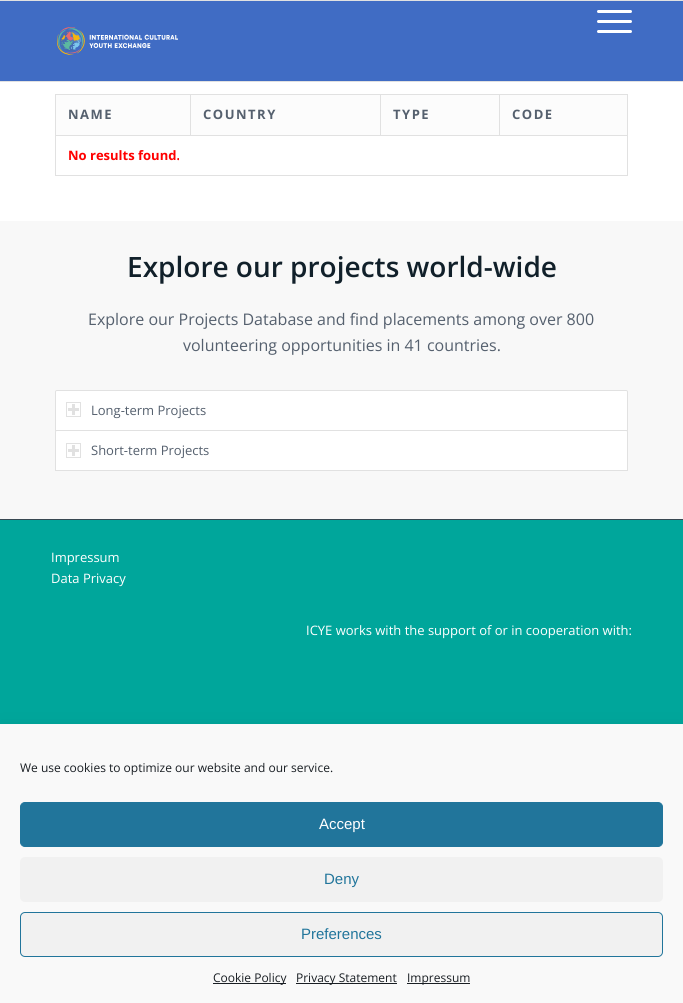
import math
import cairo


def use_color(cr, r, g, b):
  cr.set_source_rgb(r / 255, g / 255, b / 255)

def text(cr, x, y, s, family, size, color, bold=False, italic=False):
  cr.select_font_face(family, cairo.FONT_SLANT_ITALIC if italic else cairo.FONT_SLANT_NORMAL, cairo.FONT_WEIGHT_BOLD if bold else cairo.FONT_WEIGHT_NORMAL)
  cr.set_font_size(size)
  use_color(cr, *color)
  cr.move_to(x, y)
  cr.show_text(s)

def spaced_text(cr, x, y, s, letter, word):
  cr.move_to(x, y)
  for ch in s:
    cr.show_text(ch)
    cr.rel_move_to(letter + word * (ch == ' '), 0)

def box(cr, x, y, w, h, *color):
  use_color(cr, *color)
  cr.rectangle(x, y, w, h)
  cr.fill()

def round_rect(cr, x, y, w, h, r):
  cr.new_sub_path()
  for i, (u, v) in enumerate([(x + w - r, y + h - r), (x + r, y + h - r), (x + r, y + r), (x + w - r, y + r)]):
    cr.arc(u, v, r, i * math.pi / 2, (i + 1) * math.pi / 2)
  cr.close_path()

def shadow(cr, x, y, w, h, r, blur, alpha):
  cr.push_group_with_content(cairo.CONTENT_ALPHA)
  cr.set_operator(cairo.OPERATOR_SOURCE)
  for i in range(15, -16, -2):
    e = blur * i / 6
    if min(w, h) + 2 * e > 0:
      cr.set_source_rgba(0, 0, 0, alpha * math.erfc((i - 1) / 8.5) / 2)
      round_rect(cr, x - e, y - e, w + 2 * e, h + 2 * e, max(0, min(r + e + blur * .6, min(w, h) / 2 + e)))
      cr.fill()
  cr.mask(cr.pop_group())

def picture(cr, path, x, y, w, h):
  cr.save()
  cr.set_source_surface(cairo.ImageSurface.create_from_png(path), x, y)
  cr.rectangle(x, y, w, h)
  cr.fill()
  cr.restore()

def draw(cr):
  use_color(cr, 255, 255, 255)
  cr.paint()
  box(cr, 0, 0, 683, 1, 225, 225, 225)
  box(cr, 0, 81, 683, 1, 225, 225, 225)
  box(cr, 0, 1, 683, 80, 64, 108, 196)
  use_color(cr, 255, 255, 255)
  round_rect(cr, 597, 20, 35, 3, 1.5)
  cr.fill()
  round_rect(cr, 597, 10, 35, 3, 1.5)
  cr.fill()
  round_rect(cr, 597, 30, 35, 3, 1.5)
  cr.fill()
  picture(cr, "img_01.png", 57, 27, 121, 28)
  box(cr, 56, 95, 571, 40, 252, 252, 252)
  box(cr, 55, 94, 573, 1, 225, 225, 225)
  box(cr, 627, 135, 1, 41, 225, 225, 225)
  box(cr, 627, 94, 1, 42, 225, 225, 225)
  box(cr, 499, 135, 129, 1, 225, 225, 225)
  box(cr, 499, 94, 1, 42, 225, 225, 225)
  box(cr, 380, 135, 120, 1, 225, 225, 225)
  box(cr, 380, 94, 1, 42, 225, 225, 225)
  box(cr, 190, 135, 191, 1, 225, 225, 225)
  box(cr, 190, 94, 1, 42, 225, 225, 225)
  box(cr, 55, 175, 573, 1, 225, 225, 225)
  box(cr, 55, 135, 1, 41, 225, 225, 225)
  box(cr, 55, 135, 136, 1, 225, 225, 225)
  box(cr, 55, 94, 1, 42, 225, 225, 225)
  box(cr, 0, 221, 683, 298, 248, 248, 248)
  use_color(cr, 255, 255, 255)
  cr.new_path()
  cr.move_to(57, 390.5)
  cr.line_to(626, 390.5)
  cr.curve_to(627, 390.5, 627.5, 391, 627.5, 392)
  cr.line_to(627.5, 430.5)
  cr.line_to(55.5, 430.5)
  cr.line_to(55.5, 392)
  cr.curve_to(55.5, 391, 56, 390.5, 57, 390.5)
  cr.close_path()
  cr.fill_preserve()
  use_color(cr, 225, 225, 225)
  cr.set_line_width(1)
  cr.stroke()
  cr.rectangle(66.5, 402.5, 14, 14)
  cr.stroke()
  box(cr, 72, 404, 3, 11, 225, 225, 225)
  box(cr, 68, 408, 11, 3, 225, 225, 225)
  use_color(cr, 255, 255, 255)
  cr.new_path()
  cr.move_to(57, 430.5)
  cr.line_to(626, 430.5)
  cr.curve_to(627, 430.5, 627.5, 431, 627.5, 432)
  cr.line_to(627.5, 470.5)
  cr.line_to(55.5, 470.5)
  cr.line_to(55.5, 432)
  cr.curve_to(55.5, 431, 56, 430.5, 57, 430.5)
  cr.close_path()
  cr.fill_preserve()
  use_color(cr, 225, 225, 225)
  cr.stroke()
  cr.rectangle(66.5, 443.5, 14, 14)
  cr.stroke()
  box(cr, 72, 445, 3, 11, 225, 225, 225)
  box(cr, 68, 449, 11, 3, 225, 225, 225)
  box(cr, 0, 520, 683, 204, 0, 166, 155)
  box(cr, 0, 519, 683, 1, 56, 72, 82)
  use_color(cr, 0, 0, 0)
  shadow(cr, 0, 734, 683, 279, 0, 10, 0.19)
  box(cr, 0, 725, 683, 278, 249, 249, 249)
  use_color(cr, 33, 117, 155)
  round_rect(cr, 20.5, 802.5, 642, 44, 4.5)
  cr.fill_preserve()
  cr.stroke()
  use_color(cr, 241, 241, 241)
  round_rect(cr, 20, 857, 643, 45, 5)
  cr.fill()
  round_rect(cr, 20.5, 912.5, 642, 44, 4.5)
  cr.fill_preserve()
  use_color(cr, 33, 117, 155)
  cr.stroke()
  box(cr, 213, 983, 73, 1, 25, 30, 35)
  box(cr, 296, 983, 101, 1, 25, 30, 35)
  box(cr, 407, 983, 63, 1, 25, 30, 35)
  cr.select_font_face("Open Sans", cairo.FONT_SLANT_NORMAL, cairo.FONT_WEIGHT_BOLD)
  cr.set_font_size(13)
  use_color(cr, 85, 96, 110)
  spaced_text(cr, 68, 119, "NAME", 1.5, 0)
  spaced_text(cr, 203, 119, "COUNTRY", 1.5, 0)
  spaced_text(cr, 393, 119, "TYPE", 1.5, 0)
  spaced_text(cr, 512, 119, "CODE", 1.5, 0)
  text(cr, 68, 160, "No results found.", "Open Sans", 13, (255, 0, 0), bold=True)
  text(cr, 127, 277, "Explore our projects world-wide", "Open Sans SemiBold", 28, (17, 32, 42))
  text(cr, 88, 325, "Explore our Projects Database and find placements among over 800", "Open Sans", 16, (85, 96, 110))
  text(cr, 183, 351, "volunteering opportunities in 41 countries.", "Open Sans", 16, (85, 96, 110))
  text(cr, 91, 415, "Long-term Projects", "Open Sans", 13, (85, 96, 110))
  text(cr, 91, 455, "Short-term Projects", "Open Sans", 13, (85, 96, 110))
  text(cr, 51, 562, "Impressum", "Open Sans", 13, (255, 255, 255))
  text(cr, 51, 583, "Data Privacy", "Open Sans", 13, (255, 255, 255))
  text(cr, 306, 635, "ICYE works with the support of or in cooperation with:", "Open Sans", 13, (255, 255, 255))
  text(cr, 20, 772, "We use cookies to optimize our website and our service.", "Open Sans", 12, (25, 30, 35))
  text(cr, 319, 829, "Accept", "Liberation Sans", 15, (255, 255, 255))
  text(cr, 324, 884, "Deny", "Liberation Sans", 15, (33, 117, 155))
  text(cr, 301, 939, "Preferences", "Liberation Sans", 15, (33, 117, 155))
  text(cr, 213, 982, "Cookie Policy", "Open Sans", 12, (25, 30, 35))
  text(cr, 296, 982, "Privacy Statement", "Open Sans", 12, (25, 30, 35))
  text(cr, 407, 982, "Impressum", "Open Sans", 12, (25, 30, 35))


surface = cairo.ImageSurface(cairo.FORMAT_RGB24, 683, 1003)
cr = cairo.Context(surface)
options = cairo.FontOptions()
options.set_hint_metrics(cairo.HINT_METRICS_OFF)
options.set_hint_style(cairo.HINT_STYLE_NONE)
cr.set_font_options(options)
cr.set_miter_limit(4)
draw(cr)
surface.write_to_png("out.png")
